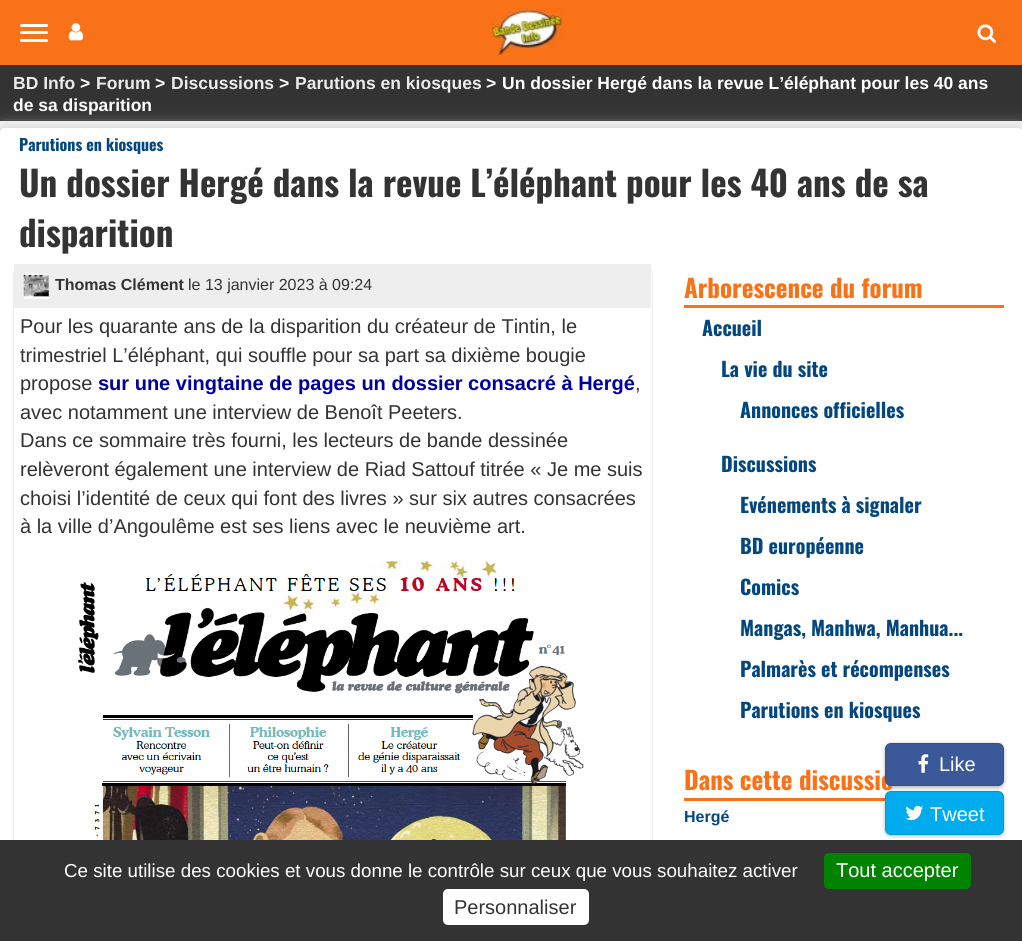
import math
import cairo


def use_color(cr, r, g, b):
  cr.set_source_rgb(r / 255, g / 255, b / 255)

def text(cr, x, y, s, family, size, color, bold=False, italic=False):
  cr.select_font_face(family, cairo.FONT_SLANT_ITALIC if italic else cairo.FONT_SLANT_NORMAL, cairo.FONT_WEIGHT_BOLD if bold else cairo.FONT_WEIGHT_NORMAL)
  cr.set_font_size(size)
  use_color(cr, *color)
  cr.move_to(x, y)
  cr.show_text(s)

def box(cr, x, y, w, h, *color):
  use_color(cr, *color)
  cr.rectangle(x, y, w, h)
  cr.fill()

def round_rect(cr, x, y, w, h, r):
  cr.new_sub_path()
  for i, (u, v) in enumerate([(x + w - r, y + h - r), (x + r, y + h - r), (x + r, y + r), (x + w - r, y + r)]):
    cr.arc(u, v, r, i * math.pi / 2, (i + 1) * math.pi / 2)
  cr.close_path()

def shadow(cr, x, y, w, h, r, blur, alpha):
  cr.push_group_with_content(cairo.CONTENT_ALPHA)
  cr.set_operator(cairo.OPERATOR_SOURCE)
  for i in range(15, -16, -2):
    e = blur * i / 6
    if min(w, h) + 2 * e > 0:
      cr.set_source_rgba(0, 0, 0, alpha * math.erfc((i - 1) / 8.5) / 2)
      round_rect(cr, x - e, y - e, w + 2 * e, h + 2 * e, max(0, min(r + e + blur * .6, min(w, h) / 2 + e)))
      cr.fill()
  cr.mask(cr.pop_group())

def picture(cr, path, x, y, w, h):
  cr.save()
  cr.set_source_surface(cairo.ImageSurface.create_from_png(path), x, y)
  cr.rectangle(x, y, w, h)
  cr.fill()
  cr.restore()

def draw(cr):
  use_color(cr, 246, 246, 246)
  cr.paint()
  box(cr, 0, 0, 1022, 65, 250, 114, 24)
  use_color(cr, 255, 255, 255)
  round_rect(cr, 20, 24, 28, 3, 1.5)
  cr.fill()
  round_rect(cr, 20, 31, 28, 3, 1.5)
  cr.fill()
  round_rect(cr, 20, 39, 28, 3, 1.5)
  cr.fill()
  picture(cr, "img_01.png", 68, 23, 15, 18)
  picture(cr, "img_02.png", 491, 7, 72, 50)
  picture(cr, "img_03.png", 977, 24, 20, 19)
  box(cr, 0, 65, 1022, 56, 51, 51, 51)
  use_color(cr, 204, 204, 204)
  shadow(cr, 0, 128, 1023, 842, 5, 8, 1)
  use_color(cr, 255, 255, 255)
  round_rect(cr, 0, 128, 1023, 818, 5)
  cr.fill()
  round_rect(cr, 13.5, 269.5, 639, 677, 4.5)
  use_color(cr, 238, 238, 238)
  cr.set_line_width(1)
  cr.stroke()
  box(cr, 14, 264, 637, 44, 238, 238, 238)
  picture(cr, "img_04.png", 23, 273, 26, 26)
  picture(cr, "img_05.png", 77, 561, 507, 279)
  box(cr, 684, 305, 320, 3, 250, 114, 24)
  box(cr, 684, 798, 201, 3, 250, 114, 24)
  use_color(cr, 0, 0, 0)
  shadow(cr, 885, 744, 119, 44, 6, 2, 0.15)
  shadow(cr, 885, 744, 119, 44, 6, 2, 0.15)
  shadow(cr, 885, 793, 119, 43, 6, 2, 0.15)
  shadow(cr, 885, 793, 119, 43, 6, 2, 0.15)
  use_color(cr, 0, 172, 237)
  round_rect(cr, 885.5, 791.5, 118, 43, 5.5)
  cr.fill_preserve()
  use_color(cr, 0, 153, 212)
  cr.stroke()
  picture(cr, "img_07.png", 905, 805, 18, 16)
  box(cr, 0, 840, 1022, 101, 51, 51, 51)
  use_color(cr, 0, 131, 0)
  round_rect(cr, 824, 853, 147, 36, 5)
  cr.fill()
  use_color(cr, 255, 255, 255)
  round_rect(cr, 443, 889, 146, 36, 5)
  cr.fill()
  text(cr, 13, 89, "BD Info", "Liberation Sans", 17.5, (235, 235, 235), bold=True)
  text(cr, 80, 89, ">", "Liberation Sans", 17.5, (255, 255, 255), bold=True)
  text(cr, 96, 89, "Forum", "Liberation Sans", 17.5, (235, 235, 235), bold=True)
  text(cr, 155, 89, ">", "Liberation Sans", 17.5, (255, 255, 255), bold=True)
  text(cr, 171, 89, "Discussions", "Liberation Sans", 17.5, (235, 235, 235), bold=True)
  text(cr, 279, 89, ">", "Liberation Sans", 17.5, (255, 255, 255), bold=True)
  text(cr, 295, 89, "Parutions en kiosques", "Liberation Sans", 17.5, (235, 235, 235), bold=True)
  text(cr, 486, 89, ">", "Liberation Sans", 17.5, (255, 255, 255), bold=True)
  text(cr, 502, 89, "Un dossier Hergé dans la revue L’éléphant pour les 40 ans", "Liberation Sans", 17.5, (255, 255, 255), bold=True)
  text(cr, 13, 111, "de sa disparition", "Liberation Sans", 17.5, (255, 255, 255), bold=True)
  text(cr, 19, 151, "Parutions en kiosques", "Oswald", 16, (4, 71, 127), bold=True)
  text(cr, 19, 197, "Un dossier Hergé dans la revue L’éléphant pour les 40 ans de sa", "Oswald", 35, (51, 51, 51), bold=True)
  text(cr, 19, 247, "disparition", "Oswald", 35, (51, 51, 51), bold=True)
  text(cr, 55, 290, "Thomas Clément", "Liberation Sans", 16, (51, 51, 51), bold=True)
  text(cr, 188, 290, "le 13 janvier 2023 à 09:24", "Liberation Sans", 16, (51, 51, 51))
  text(cr, 20, 333, "Pour les quarante ans de la disparition du créateur de Tintin, le", "Liberation Sans", 20, (51, 51, 51))
  text(cr, 20, 362, "trimestriel L’éléphant, qui souffle pour sa part sa dixième bougie", "Liberation Sans", 20, (51, 51, 51))
  text(cr, 20, 390, "propose", "Liberation Sans", 20, (51, 51, 51))
  text(cr, 98, 390, "sur une vingtaine de pages un dossier consacré à Hergé", "Liberation Sans", 20, (0, 0, 153), bold=True)
  text(cr, 635, 390, ",", "Liberation Sans", 20, (51, 51, 51))
  text(cr, 20, 419, "avec notamment une interview de Benoît Peeters.", "Liberation Sans", 20, (51, 51, 51))
  text(cr, 20, 447, "Dans ce sommaire très fourni, les lecteurs de bande dessinée", "Liberation Sans", 20, (51, 51, 51))
  text(cr, 20, 476, "relèveront également une interview de Riad Sattouf titrée « Je me suis", "Liberation Sans", 20, (51, 51, 51))
  text(cr, 20, 505, "choisi l’identité de ceux qui font des livres » sur six autres consacrées", "Liberation Sans", 20, (51, 51, 51))
  text(cr, 20, 533, "à la ville d’Angoulême est ses liens avec le neuvième art.", "Liberation Sans", 20, (51, 51, 51))
  text(cr, 684, 298, "Arborescence du forum", "Oswald", 25, (250, 114, 24), bold=True)
  text(cr, 702, 336, "Accueil", "Oswald", 20, (4, 71, 127), bold=True)
  text(cr, 721, 377, "La vie du site", "Oswald", 20, (4, 71, 127), bold=True)
  text(cr, 740, 418, "Annonces officielles", "Oswald", 20, (4, 71, 127), bold=True)
  text(cr, 721, 472, "Discussions", "Oswald", 20, (4, 71, 127), bold=True)
  text(cr, 740, 513, "Evénements à signaler", "Oswald", 20, (4, 71, 127), bold=True)
  text(cr, 740, 554, "BD européenne", "Oswald", 20, (4, 71, 127), bold=True)
  text(cr, 740, 595, "Comics", "Oswald", 20, (4, 71, 127), bold=True)
  text(cr, 740, 636, "Mangas, Manhwa, Manhua...", "Oswald", 20, (4, 71, 127), bold=True)
  text(cr, 740, 677, "Palmarès et récompenses", "Oswald", 20, (4, 71, 127), bold=True)
  text(cr, 740, 718, "Parutions en kiosques", "Oswald", 20, (4, 71, 127), bold=True)
  text(cr, 684, 790, "Dans cette discussio", "Oswald", 25, (250, 114, 24), bold=True)
  text(cr, 684, 822, "Hergé", "Liberation Sans", 16, (4, 71, 127), bold=True)
  use_color(cr, 59, 89, 152)
  round_rect(cr, 885.5, 743.5, 118, 42, 5.5)
  cr.fill_preserve()
  use_color(cr, 52, 78, 134)
  cr.stroke()
  picture(cr, "img_06.png", 918, 754, 11, 19)
  text(cr, 939, 771, "Like", "Liberation Sans", 20, (255, 255, 255))
  text(cr, 930, 821, "Tweet", "Liberation Sans", 20, (255, 255, 255))
  text(cr, 64, 877, "Ce site utilise des cookies et vous donne le contrôle sur ceux que vous souhaitez activer", "Liberation Sans", 18.75, (255, 255, 255))
  text(cr, 836, 877, "Tout accepter", "Liberation Sans", 20, (255, 255, 255))
  text(cr, 454, 914, "Personnaliser", "Liberation Sans", 20, (51, 51, 51))


surface = cairo.ImageSurface(cairo.FORMAT_RGB24, 1022, 941)
cr = cairo.Context(surface)
options = cairo.FontOptions()
options.set_hint_metrics(cairo.HINT_METRICS_OFF)
options.set_hint_style(cairo.HINT_STYLE_NONE)
cr.set_font_options(options)
cr.set_miter_limit(4)
draw(cr)
surface.write_to_png("out.png")
